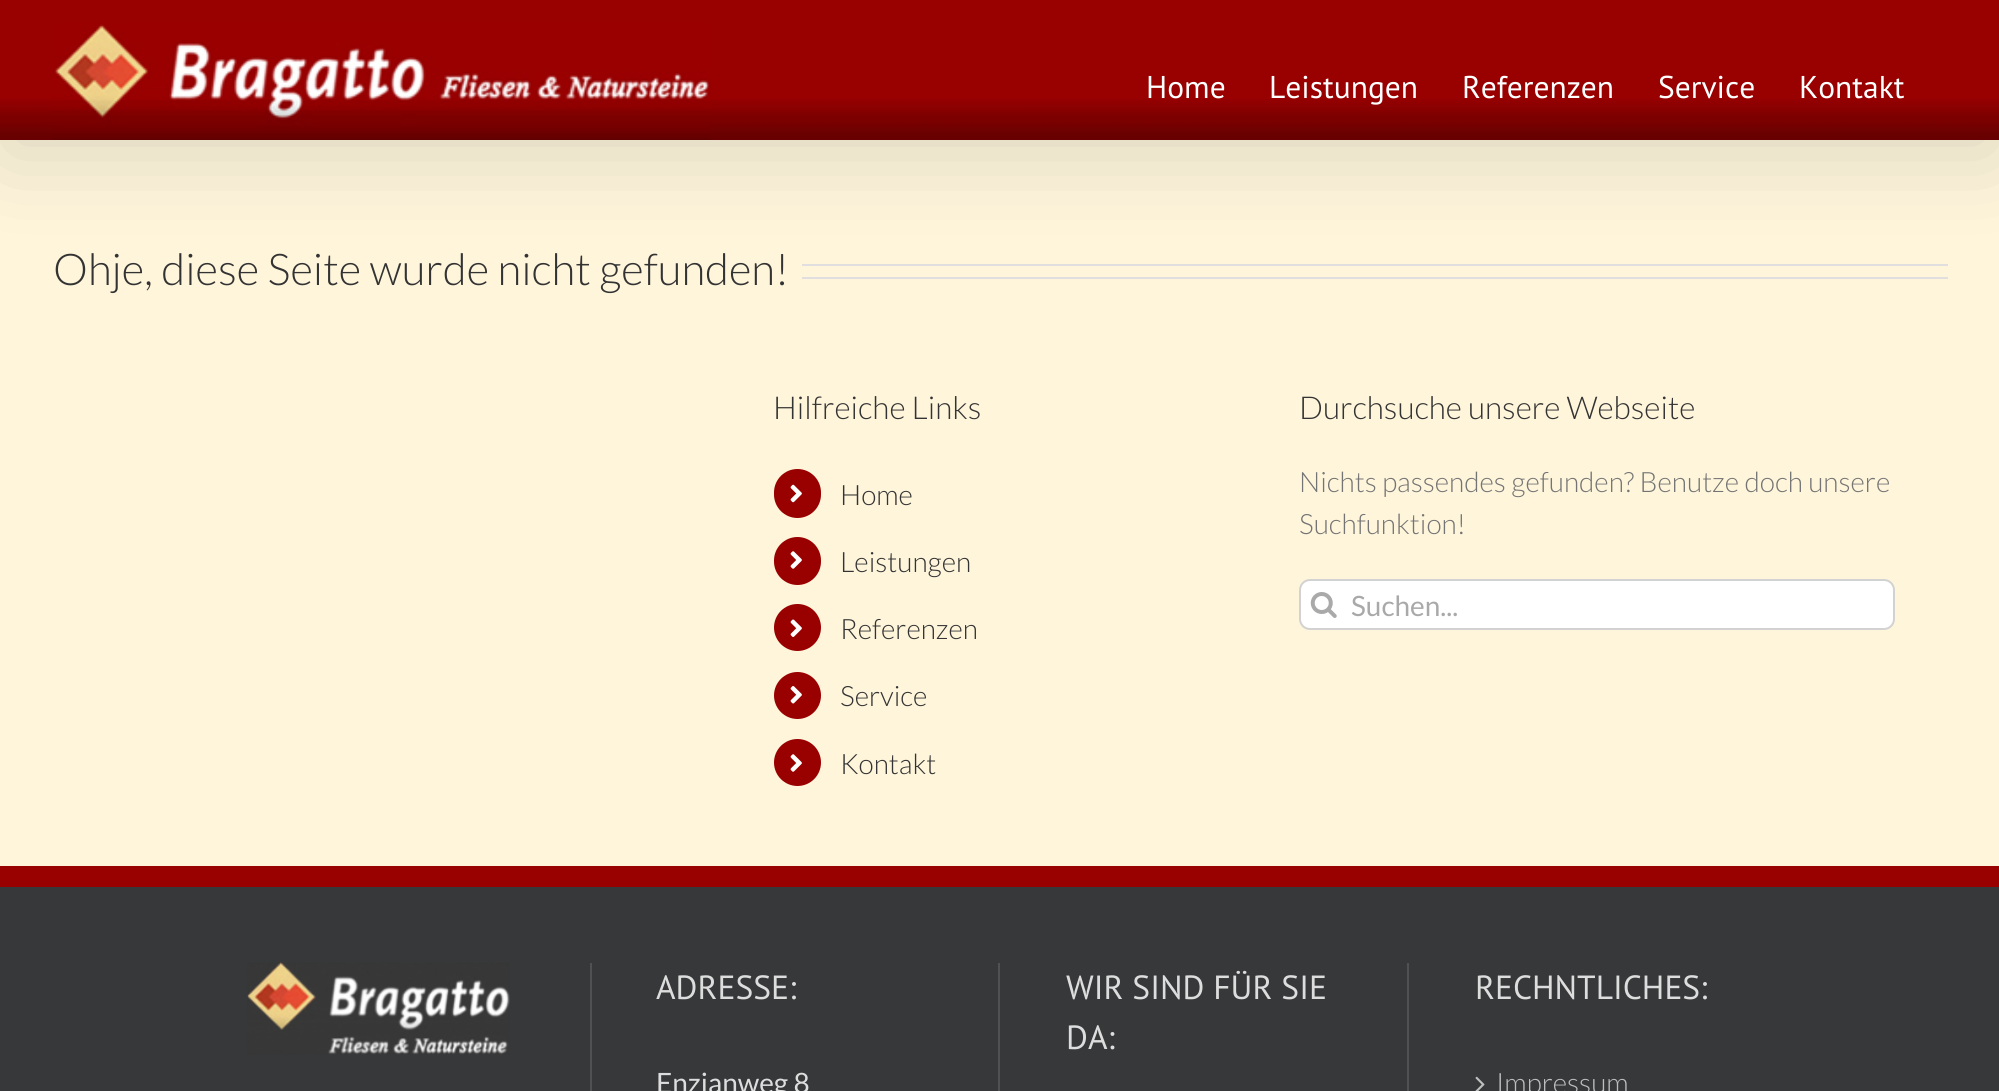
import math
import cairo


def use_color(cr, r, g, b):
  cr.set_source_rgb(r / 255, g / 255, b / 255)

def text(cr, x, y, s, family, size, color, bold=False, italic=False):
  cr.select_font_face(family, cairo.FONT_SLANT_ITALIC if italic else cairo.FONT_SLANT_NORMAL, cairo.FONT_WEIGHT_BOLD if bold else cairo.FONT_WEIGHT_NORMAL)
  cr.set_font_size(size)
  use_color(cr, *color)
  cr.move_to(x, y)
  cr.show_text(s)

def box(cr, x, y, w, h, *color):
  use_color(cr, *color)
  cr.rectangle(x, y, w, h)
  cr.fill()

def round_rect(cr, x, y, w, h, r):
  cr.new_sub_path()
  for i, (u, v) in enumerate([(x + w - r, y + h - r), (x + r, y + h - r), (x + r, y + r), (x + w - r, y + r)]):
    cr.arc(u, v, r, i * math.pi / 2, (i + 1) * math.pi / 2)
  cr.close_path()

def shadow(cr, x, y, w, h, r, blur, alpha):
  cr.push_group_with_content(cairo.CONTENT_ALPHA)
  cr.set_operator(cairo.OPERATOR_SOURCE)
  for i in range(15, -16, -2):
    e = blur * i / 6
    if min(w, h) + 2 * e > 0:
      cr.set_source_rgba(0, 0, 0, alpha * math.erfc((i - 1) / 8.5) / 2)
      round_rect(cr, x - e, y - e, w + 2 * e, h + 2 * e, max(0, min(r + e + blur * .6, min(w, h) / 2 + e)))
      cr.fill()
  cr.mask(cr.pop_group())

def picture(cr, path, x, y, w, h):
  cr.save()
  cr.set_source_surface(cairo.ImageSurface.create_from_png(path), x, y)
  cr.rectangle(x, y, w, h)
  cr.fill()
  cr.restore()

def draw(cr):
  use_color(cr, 254, 245, 219)
  cr.paint()
  box(cr, 802, 264, 1146, 2, 224, 222, 222)
  box(cr, 802, 277, 1146, 2, 224, 222, 222)
  use_color(cr, 0, 0, 0)
  shadow(cr, 4, 21, 1993, 133, 0, 44, 0.14)
  box(cr, 0, 0, 1999, 99, 153, 0, 0)
  picture(cr, "img_01.png", 0, 99, 1999, 41)
  picture(cr, "img_02.png", 52, 23, 659, 117)
  round_rect(cr, 774, 469, 47, 49, 23.5)
  cr.fill()
  picture(cr, "img_03.png", 790, 484, 12, 19)
  round_rect(cr, 774, 537, 47, 48, 23.5)
  cr.fill()
  picture(cr, "img_04.png", 790, 551, 12, 18)
  cr.arc(797.5, 627.5, 23.5, 0, 2 * math.pi)
  cr.fill()
  picture(cr, "img_05.png", 790, 619, 12, 18)
  cr.arc(797.5, 695.5, 23.5, 0, 2 * math.pi)
  cr.fill()
  picture(cr, "img_06.png", 790, 686, 12, 18)
  cr.arc(797.5, 762.5, 23.5, 0, 2 * math.pi)
  cr.fill()
  picture(cr, "img_04.png", 790, 754, 12, 18)
  use_color(cr, 255, 255, 255)
  round_rect(cr, 1300, 580, 594, 49, 10)
  cr.fill_preserve()
  use_color(cr, 210, 210, 210)
  cr.stroke()
  picture(cr, "img_07.png", 1310, 592, 27, 26)
  box(cr, 0, 887, 1999, 204, 54, 56, 57)
  box(cr, 0, 866, 1999, 21, 153, 0, 0)
  box(cr, 590, 963, 2, 128, 80, 81, 82)
  picture(cr, "img_08.png", 247, 962, 263, 93)
  box(cr, 998, 963, 2, 128, 80, 81, 82)
  box(cr, 1407, 963, 2, 128, 80, 81, 82)
  picture(cr, "img_09.png", 1475, 1076, 10, 15)
  text(cr, 1146, 98, "Home", "PT Sans", 31.5, (255, 255, 255))
  text(cr, 1269, 98, "Leistungen", "PT Sans", 31.5, (255, 255, 255))
  text(cr, 1462, 98, "Referenzen", "PT Sans", 31.5, (255, 255, 255))
  text(cr, 1658, 98, "Service", "PT Sans", 31.5, (255, 255, 255))
  text(cr, 1799, 98, "Kontakt", "PT Sans", 31.5, (255, 255, 255))
  text(cr, 53, 285, "Ohje, diese Seite wurde nicht gefunden!", "Lato Light", 43.75, (51, 51, 51))
  text(cr, 773, 419, "Hilfreiche Links", "Lato Light", 31.5, (51, 51, 51))
  text(cr, 840, 505, "Home", "Lato Light", 28, (51, 51, 51))
  text(cr, 840, 572, "Leistungen", "Lato Light", 28, (51, 51, 51))
  text(cr, 840, 639, "Referenzen", "Lato Light", 28, (51, 51, 51))
  text(cr, 840, 706, "Service", "Lato Light", 28, (51, 51, 51))
  text(cr, 840, 774, "Kontakt", "Lato Light", 28, (51, 51, 51))
  text(cr, 1299, 419, "Durchsuche unsere Webseite", "Lato Light", 31.5, (51, 51, 51))
  text(cr, 1299, 492, "Nichts passendes gefunden? Benutze doch unsere", "Lato Light", 28, (116, 116, 116))
  text(cr, 1299, 534, "Suchfunktion!", "Lato Light", 28, (116, 116, 116))
  text(cr, 1351, 616, "Suchen...", "Lato", 28, (170, 169, 169))
  text(cr, 656, 999, "ADRESSE:", "PT Sans", 33.5, (221, 221, 221))
  text(cr, 656, 1093, "Enzianweg 8", "Lato", 28, (221, 221, 221))
  text(cr, 1066, 999, "WIR SIND FÜR SIE", "PT Sans", 33.5, (221, 221, 221))
  text(cr, 1066, 1049, "DA:", "PT Sans", 33.5, (221, 221, 221))
  text(cr, 1475, 999, "RECHNTLICHES:", "PT Sans", 33.5, (221, 221, 221))
  text(cr, 1496, 1093, "Impressum", "Lato Light", 28, (191, 191, 191))


surface = cairo.ImageSurface(cairo.FORMAT_RGB24, 1999, 1091)
cr = cairo.Context(surface)
options = cairo.FontOptions()
options.set_hint_metrics(cairo.HINT_METRICS_OFF)
options.set_hint_style(cairo.HINT_STYLE_NONE)
cr.set_font_options(options)
cr.set_miter_limit(4)
draw(cr)
surface.write_to_png("out.png")
